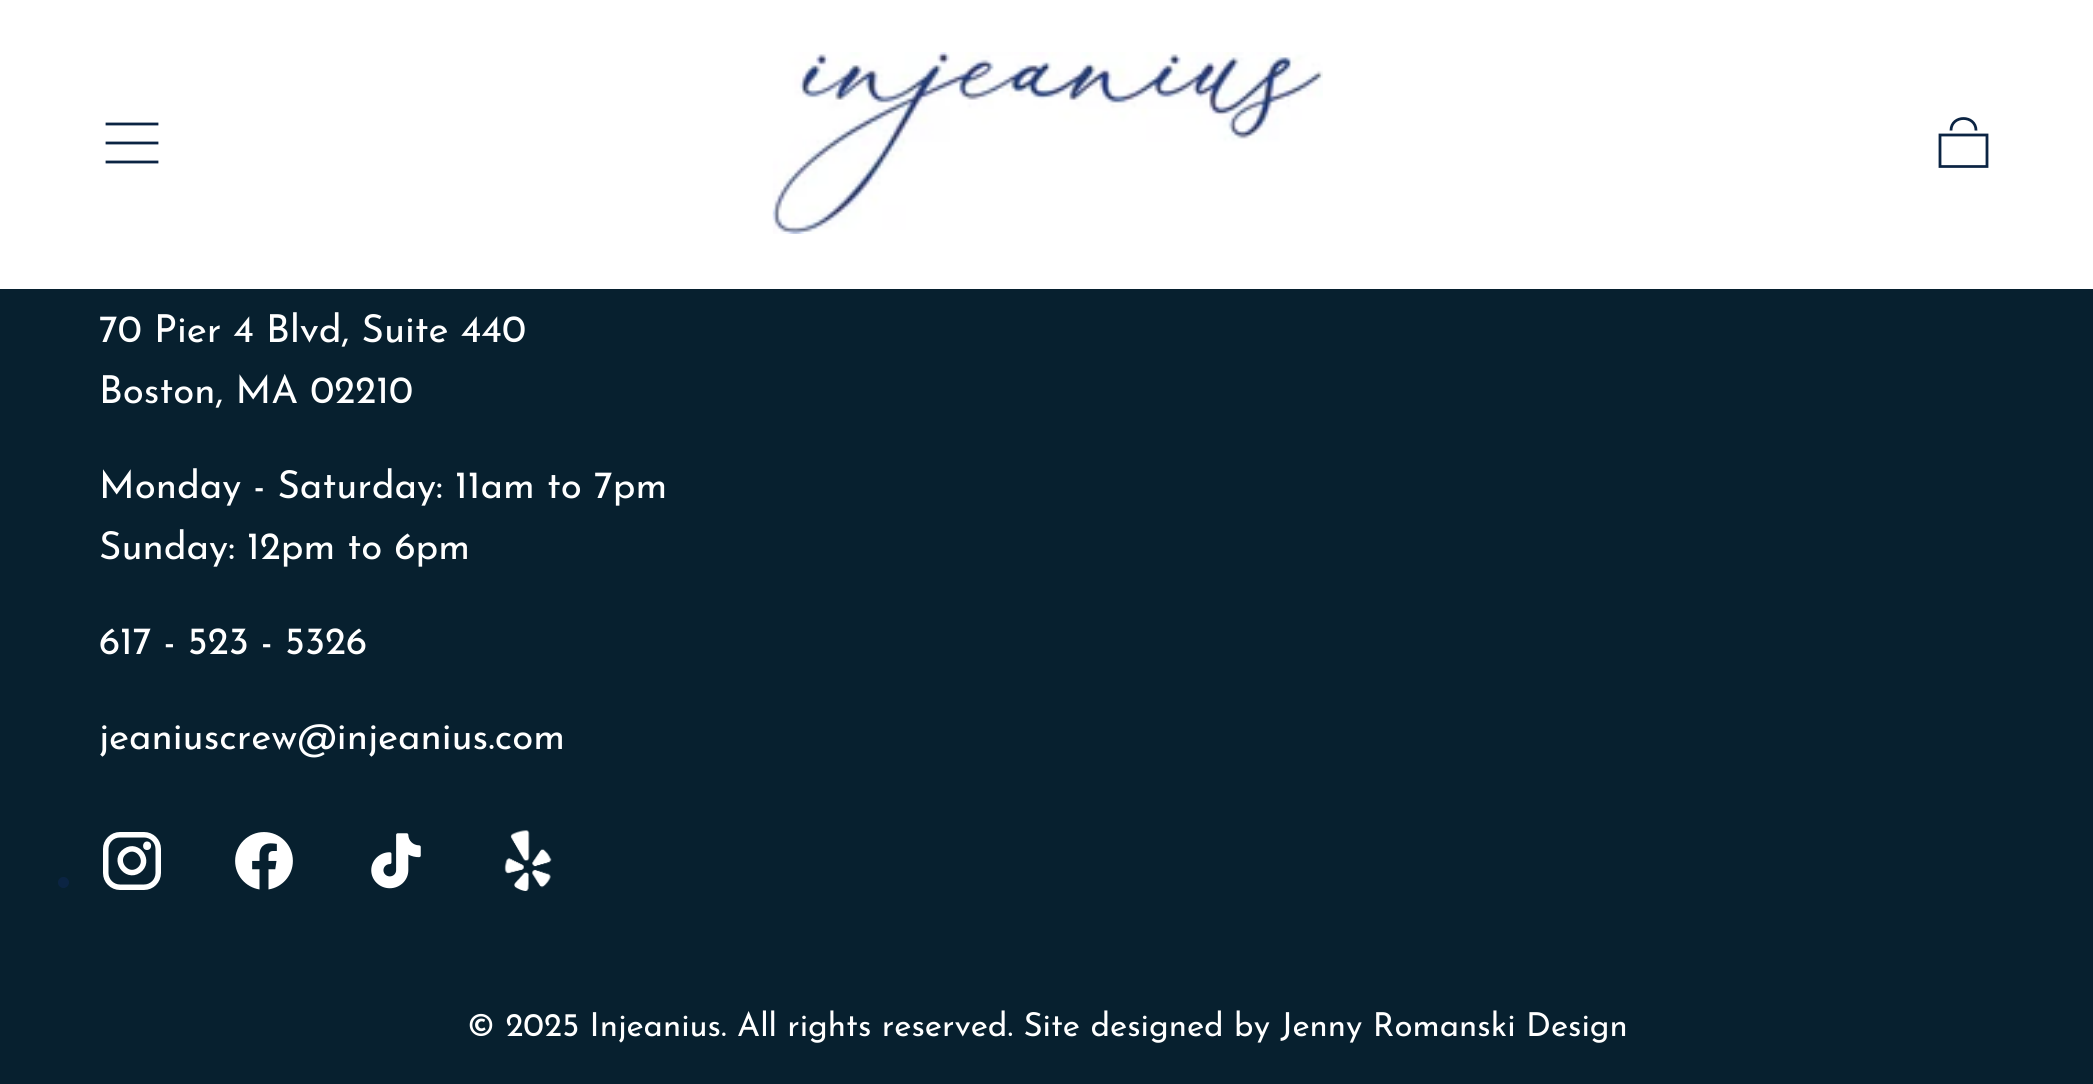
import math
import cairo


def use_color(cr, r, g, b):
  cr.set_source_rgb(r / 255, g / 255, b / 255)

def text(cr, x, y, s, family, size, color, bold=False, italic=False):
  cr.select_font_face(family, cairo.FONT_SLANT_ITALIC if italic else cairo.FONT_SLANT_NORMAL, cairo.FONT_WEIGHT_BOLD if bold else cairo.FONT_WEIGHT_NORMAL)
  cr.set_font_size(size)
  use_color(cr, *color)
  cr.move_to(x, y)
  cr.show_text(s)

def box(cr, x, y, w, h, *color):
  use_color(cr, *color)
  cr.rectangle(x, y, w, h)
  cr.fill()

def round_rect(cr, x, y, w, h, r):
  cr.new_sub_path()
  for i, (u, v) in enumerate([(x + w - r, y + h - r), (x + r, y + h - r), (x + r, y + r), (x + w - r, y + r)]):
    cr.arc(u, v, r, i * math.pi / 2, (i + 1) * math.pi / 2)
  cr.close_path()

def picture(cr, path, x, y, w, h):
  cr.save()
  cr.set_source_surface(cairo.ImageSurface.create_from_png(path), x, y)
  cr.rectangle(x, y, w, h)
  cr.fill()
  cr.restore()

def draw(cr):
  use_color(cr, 7, 32, 47)
  cr.paint()
  box(cr, 0, 0, 2093, 289, 255, 255, 255)
  cr.new_path()
  cr.move_to(107, 124)
  cr.line_to(157, 124)
  cr.move_to(107, 143)
  cr.line_to(157, 143)
  cr.move_to(107, 162)
  cr.line_to(157, 162)
  use_color(cr, 11, 36, 67)
  cr.set_line_width(2.8)
  cr.set_line_cap(cairo.LINE_CAP_SQUARE)
  cr.stroke()
  picture(cr, "img_01.png", 772, 52, 551, 182)
  cr.new_path()
  cr.move_to(1987, 166.5)
  cr.line_to(1940, 166.5)
  cr.line_to(1940, 135)
  cr.line_to(1987, 135)
  cr.close_path()
  cr.move_to(1976, 130.5)
  cr.curve_to(1976, 114.5, 1951, 114.5, 1951, 130.5)
  cr.set_line_cap(cairo.LINE_CAP_BUTT)
  cr.stroke()
  cr.arc(63.5, 882.5, 5.5, 0, 2 * math.pi)
  cr.fill()
  round_rect(cr, 105.75, 834.75, 52.5, 52.5, 14.25)
  use_color(cr, 255, 255, 255)
  cr.set_line_width(5.5)
  cr.stroke()
  cr.new_path()
  cr.move_to(147, 850)
  cr.curve_to(141.5, 850, 142, 841.5, 147, 841.5)
  cr.curve_to(152.5, 841.5, 152.5, 850, 147, 850)
  cr.close_path()
  cr.fill()
  cr.new_path()
  cr.move_to(125.5, 851)
  cr.curve_to(138, 842.5, 151, 861.5, 138.5, 870.5)
  cr.curve_to(126, 879, 112.5, 859.5, 125.5, 851)
  cr.close_path()
  cr.stroke()
  picture(cr, "img_02.png", 235, 832, 58, 58)
  picture(cr, "img_03.png", 371, 833, 50, 56)
  picture(cr, "img_04.png", 504, 830, 48, 61)
  text(cr, 99, 342, "70 Pier 4 Blvd, Suite 440", "Josefin Sans", 38.5, (255, 255, 255))
  text(cr, 99, 403, "Boston, MA 02210", "Josefin Sans", 38.5, (255, 255, 255))
  text(cr, 99, 498, "Monday - Saturday: 11am to 7pm", "Josefin Sans", 38.5, (255, 255, 255))
  text(cr, 99, 559, "Sunday: 12pm to 6pm", "Josefin Sans", 38.5, (255, 255, 255))
  text(cr, 99, 654, "617 - 523 - 5326", "Josefin Sans", 38.5, (255, 255, 255))
  text(cr, 99, 749, "jeaniuscrew@injeanius.com", "Josefin Sans", 38.5, (255, 255, 255))
  text(cr, 467, 1036, "© 2025 Injeanius. All rights reserved. Site designed by Jenny Romanski Design", "Josefin Sans", 33, (255, 255, 255))


surface = cairo.ImageSurface(cairo.FORMAT_RGB24, 2093, 1084)
cr = cairo.Context(surface)
options = cairo.FontOptions()
options.set_hint_metrics(cairo.HINT_METRICS_OFF)
options.set_hint_style(cairo.HINT_STYLE_NONE)
cr.set_font_options(options)
cr.set_miter_limit(4)
draw(cr)
surface.write_to_png("out.png")
